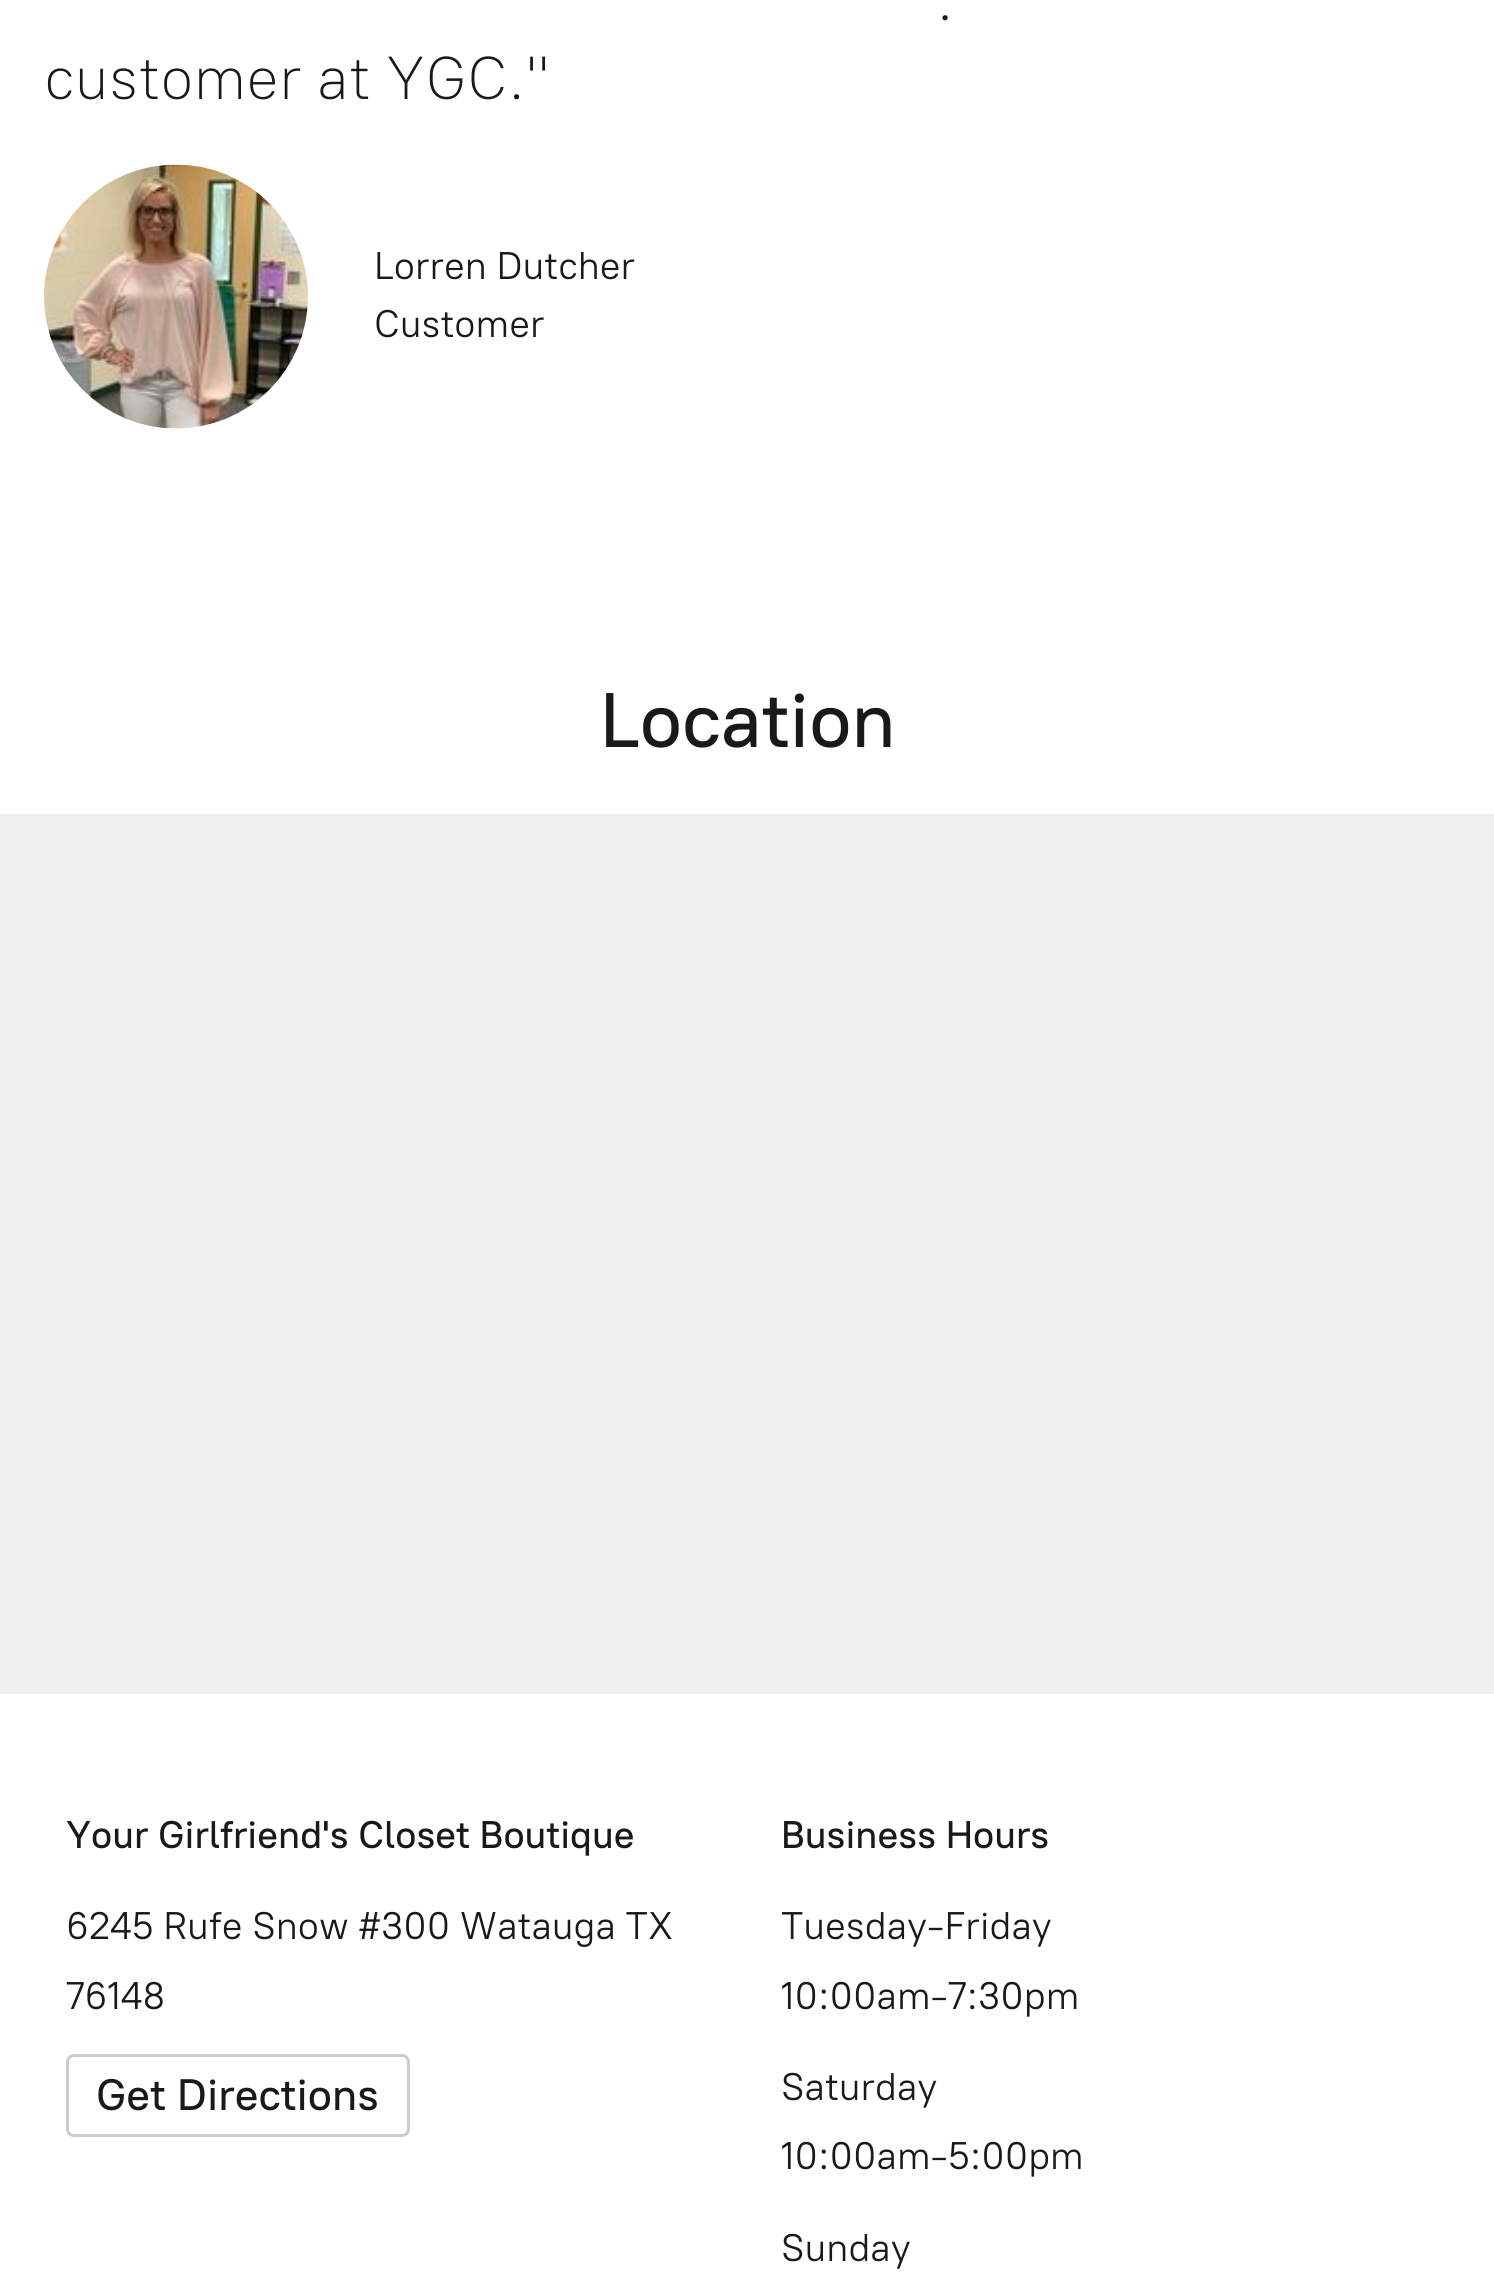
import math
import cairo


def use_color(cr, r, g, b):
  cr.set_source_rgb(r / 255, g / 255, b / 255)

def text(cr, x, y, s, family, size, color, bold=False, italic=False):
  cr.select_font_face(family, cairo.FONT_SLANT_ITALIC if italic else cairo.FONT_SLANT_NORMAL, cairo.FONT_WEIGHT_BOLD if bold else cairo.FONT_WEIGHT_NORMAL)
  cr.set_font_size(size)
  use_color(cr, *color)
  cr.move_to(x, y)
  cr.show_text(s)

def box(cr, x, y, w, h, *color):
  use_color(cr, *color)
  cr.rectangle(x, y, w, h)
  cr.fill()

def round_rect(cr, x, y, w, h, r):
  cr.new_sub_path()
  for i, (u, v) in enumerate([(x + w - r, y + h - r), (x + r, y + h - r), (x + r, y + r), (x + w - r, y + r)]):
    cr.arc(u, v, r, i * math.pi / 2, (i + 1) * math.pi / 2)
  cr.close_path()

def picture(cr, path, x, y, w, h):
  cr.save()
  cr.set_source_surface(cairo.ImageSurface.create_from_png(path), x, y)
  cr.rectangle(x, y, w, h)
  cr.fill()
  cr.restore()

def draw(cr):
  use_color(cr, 255, 255, 255)
  cr.paint()
  picture(cr, "img_01.png", 44, 164, 264, 265)
  box(cr, 0, 814, 1494, 880, 239, 239, 239)
  round_rect(cr, 67.5, 2055.5, 341, 80, 6.5)
  use_color(cr, 204, 204, 204)
  cr.set_line_width(3)
  cr.stroke()
  text(cr, 936, 20, ".", "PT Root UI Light", 60.5, (25, 25, 25))
  text(cr, 44, 99, "customer at YGC.\"", "PT Root UI Light", 60.5, (25, 25, 25))
  text(cr, 374, 279, "Lorren Dutcher", "PT Root UI", 38.5, (25, 25, 25))
  text(cr, 374, 337, "Customer", "PT Root UI", 38.5, (25, 25, 25))
  text(cr, 600, 747, "Location", "PT Root UI Medium", 77, (25, 25, 25))
  text(cr, 66, 1848, "Your Girlfriend's Closet Boutique", "PT Root UI Medium", 38.5, (25, 25, 25))
  text(cr, 66, 1939, "6245 Rufe Snow #300 Watauga TX", "PT Root UI", 38.5, (25, 25, 25))
  text(cr, 66, 2009, "76148", "PT Root UI", 38.5, (25, 25, 25))
  text(cr, 96, 2110, "Get Directions", "PT Root UI Medium", 44, (25, 25, 25))
  text(cr, 781, 1848, "Business Hours", "PT Root UI Medium", 38.5, (25, 25, 25))
  text(cr, 781, 1939, "Tuesday-Friday", "PT Root UI", 38.5, (25, 25, 25))
  text(cr, 781, 2009, "10:00am-7:30pm", "PT Root UI", 38.5, (25, 25, 25))
  text(cr, 781, 2100, "Saturday", "PT Root UI", 38.5, (25, 25, 25))
  text(cr, 781, 2169, "10:00am-5:00pm", "PT Root UI", 38.5, (25, 25, 25))
  text(cr, 781, 2261, "Sunday", "PT Root UI", 38.5, (25, 25, 25))


surface = cairo.ImageSurface(cairo.FORMAT_RGB24, 1494, 2281)
cr = cairo.Context(surface)
options = cairo.FontOptions()
options.set_hint_metrics(cairo.HINT_METRICS_OFF)
options.set_hint_style(cairo.HINT_STYLE_NONE)
cr.set_font_options(options)
cr.set_miter_limit(4)
draw(cr)
surface.write_to_png("out.png")
